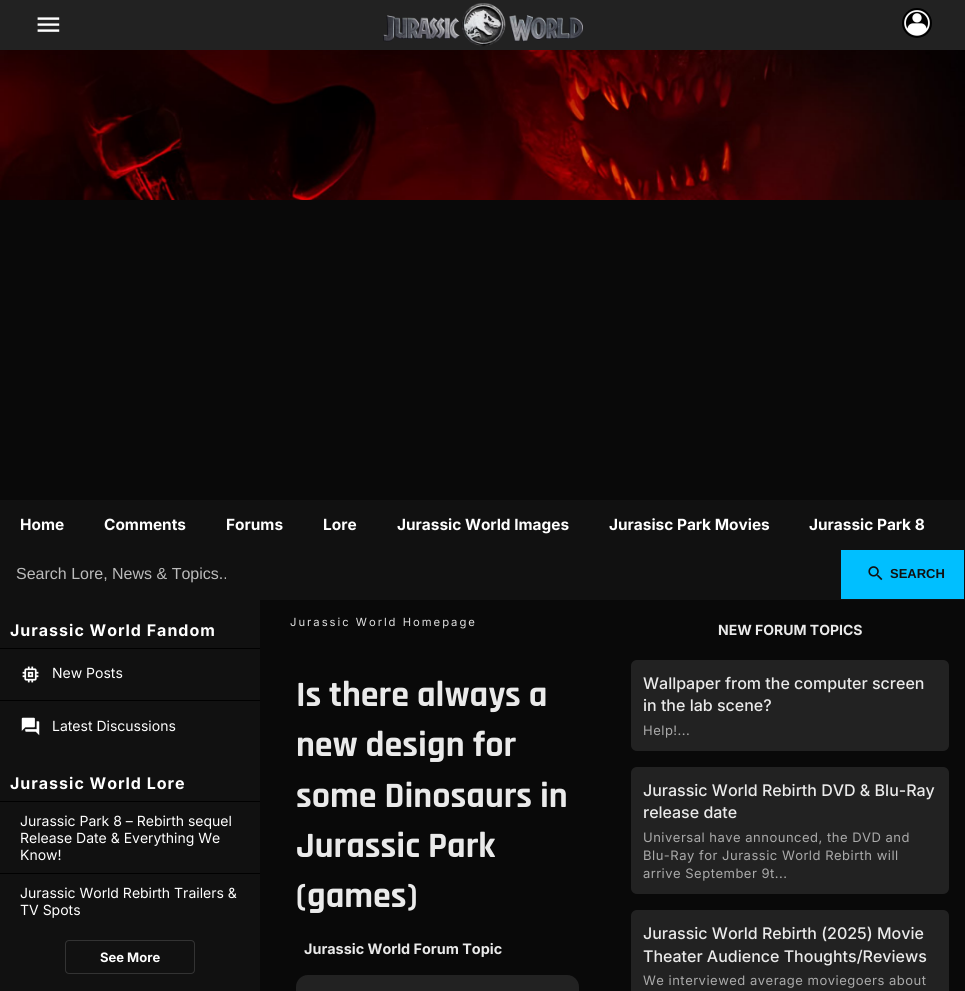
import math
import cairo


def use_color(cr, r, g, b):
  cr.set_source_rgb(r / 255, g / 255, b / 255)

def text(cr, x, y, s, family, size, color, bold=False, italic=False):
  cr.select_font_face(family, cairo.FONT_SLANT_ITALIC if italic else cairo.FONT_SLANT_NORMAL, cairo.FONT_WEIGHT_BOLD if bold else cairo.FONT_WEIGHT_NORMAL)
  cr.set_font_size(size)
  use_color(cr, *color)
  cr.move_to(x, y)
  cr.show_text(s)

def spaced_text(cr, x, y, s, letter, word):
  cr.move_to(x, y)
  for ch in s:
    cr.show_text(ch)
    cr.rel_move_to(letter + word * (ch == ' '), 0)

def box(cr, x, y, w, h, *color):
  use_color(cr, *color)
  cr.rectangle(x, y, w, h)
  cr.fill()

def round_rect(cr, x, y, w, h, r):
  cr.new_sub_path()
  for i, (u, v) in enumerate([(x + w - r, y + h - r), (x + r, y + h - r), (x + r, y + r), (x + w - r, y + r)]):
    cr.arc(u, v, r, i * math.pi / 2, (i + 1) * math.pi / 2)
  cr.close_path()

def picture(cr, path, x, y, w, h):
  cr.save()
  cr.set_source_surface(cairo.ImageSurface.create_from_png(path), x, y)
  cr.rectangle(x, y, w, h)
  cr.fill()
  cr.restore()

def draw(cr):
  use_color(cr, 9, 9, 9)
  cr.paint()
  box(cr, 0, 0, 965, 50, 34, 34, 34)
  picture(cr, "img_01.png", 37, 17, 23, 15)
  picture(cr, "img_02.png", 383, 3, 200, 44)
  picture(cr, "img_03.png", 902, 8, 30, 30)
  picture(cr, "img_04.png", 0, 50, 965, 150)
  box(cr, 0, 500, 965, 100, 17, 17, 17)
  box(cr, 841, 550, 123, 49, 0, 191, 255)
  picture(cr, "img_05.png", 868, 566, 15, 15)
  box(cr, 0, 600, 260, 391, 17, 17, 17)
  box(cr, 0, 648, 260, 1, 1, 1, 1)
  picture(cr, "img_06.png", 22, 666, 17, 17)
  box(cr, 0, 700, 260, 1, 1, 1, 1)
  picture(cr, "img_07.png", 21, 717, 19, 19)
  box(cr, 0, 801, 260, 1, 1, 1, 1)
  box(cr, 0, 873, 260, 1, 1, 1, 1)
  round_rect(cr, 65.5, 940.5, 129, 33, 3.5)
  use_color(cr, 51, 51, 51)
  cr.set_line_width(1)
  cr.stroke()
  use_color(cr, 34, 34, 34)
  round_rect(cr, 296, 975, 283, 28, 12)
  cr.fill()
  round_rect(cr, 631, 660, 318, 91, 6)
  cr.fill()
  round_rect(cr, 631, 767, 318, 127, 6)
  cr.fill()
  round_rect(cr, 631, 910, 318, 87, 6)
  cr.fill()
  text(cr, 20, 530, "Home", "Inter", 15.4, (255, 255, 255), bold=True)
  text(cr, 104, 530, "Comments", "Inter", 15.4, (255, 255, 255), bold=True)
  text(cr, 226, 530, "Forums", "Inter", 15.4, (255, 255, 255), bold=True)
  text(cr, 323, 530, "Lore", "Inter", 15.4, (255, 255, 255), bold=True)
  text(cr, 397, 530, "Jurassic World Images", "Inter", 15.4, (255, 255, 255), bold=True)
  text(cr, 609, 530, "Jurasisc Park Movies", "Inter", 15.4, (255, 255, 255), bold=True)
  text(cr, 809, 530, "Jurassic Park 8", "Inter", 15.4, (255, 255, 255), bold=True)
  text(cr, 16, 579, "Search Lore, News & Topics..", "Liberation Sans", 16, (187, 187, 187))
  text(cr, 890, 578, "SEARCH", "Liberation Sans", 13, (17, 17, 17), bold=True)
  cr.select_font_face("Inter", cairo.FONT_SLANT_NORMAL, cairo.FONT_WEIGHT_BOLD)
  cr.set_font_size(16)
  use_color(cr, 255, 255, 255)
  spaced_text(cr, 10, 636, "Jurassic World Fandom", 1, 0)
  text(cr, 52, 678, "New Posts", "Inter", 14, (255, 255, 255))
  text(cr, 52, 731, "Latest Discussions", "Inter", 14, (255, 255, 255))
  cr.select_font_face("Inter", cairo.FONT_SLANT_NORMAL, cairo.FONT_WEIGHT_BOLD)
  cr.set_font_size(16)
  spaced_text(cr, 10, 789, "Jurassic World Lore", 1, 0)
  text(cr, 20, 826, "Jurassic Park 8 – Rebirth sequel", "Inter", 14, (255, 255, 255))
  text(cr, 20, 843, "Release Date & Everything We", "Inter", 14, (255, 255, 255))
  text(cr, 20, 860, "Know!", "Inter", 14, (255, 255, 255))
  text(cr, 20, 898, "Jurassic World Rebirth Trailers &", "Inter", 14, (255, 255, 255))
  text(cr, 20, 915, "TV Spots", "Inter", 14, (255, 255, 255))
  text(cr, 100, 962, "See More", "Inter", 13, (255, 255, 255), bold=True)
  cr.select_font_face("Inter")
  cr.set_font_size(11.25)
  use_color(cr, 225, 225, 225)
  spaced_text(cr, 290, 626, "Jurassic World Homepage", 2, 0)
  text(cr, 296, 706, "Is there always a", "Rajdhani", 36, (234, 234, 234), bold=True)
  text(cr, 296, 756, "new design for", "Rajdhani", 36, (234, 234, 234), bold=True)
  text(cr, 296, 807, "some Dinosaurs in", "Rajdhani", 36, (234, 234, 234), bold=True)
  text(cr, 296, 857, "Jurassic Park", "Rajdhani", 36, (234, 234, 234), bold=True)
  text(cr, 296, 907, "(games)", "Rajdhani", 36, (234, 234, 234), bold=True)
  text(cr, 304, 954, "Jurassic World Forum Topic", "Inter", 14.4, (234, 234, 234), bold=True)
  text(cr, 718, 635, "NEW FORUM TOPICS", "Inter", 14, (234, 234, 234), bold=True)
  text(cr, 643, 689, "Wallpaper from the computer screen", "Inter Medium", 16, (234, 234, 234))
  text(cr, 643, 711, "in the lab scene?", "Inter Medium", 16, (234, 234, 234))
  cr.select_font_face("Inter")
  cr.set_font_size(13)
  use_color(cr, 170, 170, 170)
  spaced_text(cr, 643, 735, "Help!...", 0.5, 0)
  text(cr, 643, 796, "Jurassic World Rebirth DVD & Blu-Ray", "Inter Medium", 16, (234, 234, 234))
  text(cr, 643, 818, "release date", "Inter Medium", 16, (234, 234, 234))
  cr.select_font_face("Inter")
  cr.set_font_size(13)
  use_color(cr, 170, 170, 170)
  spaced_text(cr, 643, 842, "Universal have announced, the DVD and", 0.5, 0)
  spaced_text(cr, 643, 860, "Blu-Ray for Jurassic World Rebirth will", 0.5, 0)
  spaced_text(cr, 643, 878, "arrive September 9t...", 0.5, 0)
  text(cr, 643, 939, "Jurassic World Rebirth (2025) Movie", "Inter Medium", 16, (234, 234, 234))
  text(cr, 643, 962, "Theater Audience Thoughts/Reviews", "Inter Medium", 16, (234, 234, 234))
  cr.select_font_face("Inter")
  cr.set_font_size(13)
  use_color(cr, 170, 170, 170)
  spaced_text(cr, 643, 985, "We interviewed average moviegoers about", 0.5, 0)


surface = cairo.ImageSurface(cairo.FORMAT_RGB24, 965, 991)
cr = cairo.Context(surface)
options = cairo.FontOptions()
options.set_hint_metrics(cairo.HINT_METRICS_OFF)
options.set_hint_style(cairo.HINT_STYLE_NONE)
cr.set_font_options(options)
cr.set_miter_limit(4)
draw(cr)
surface.write_to_png("out.png")
